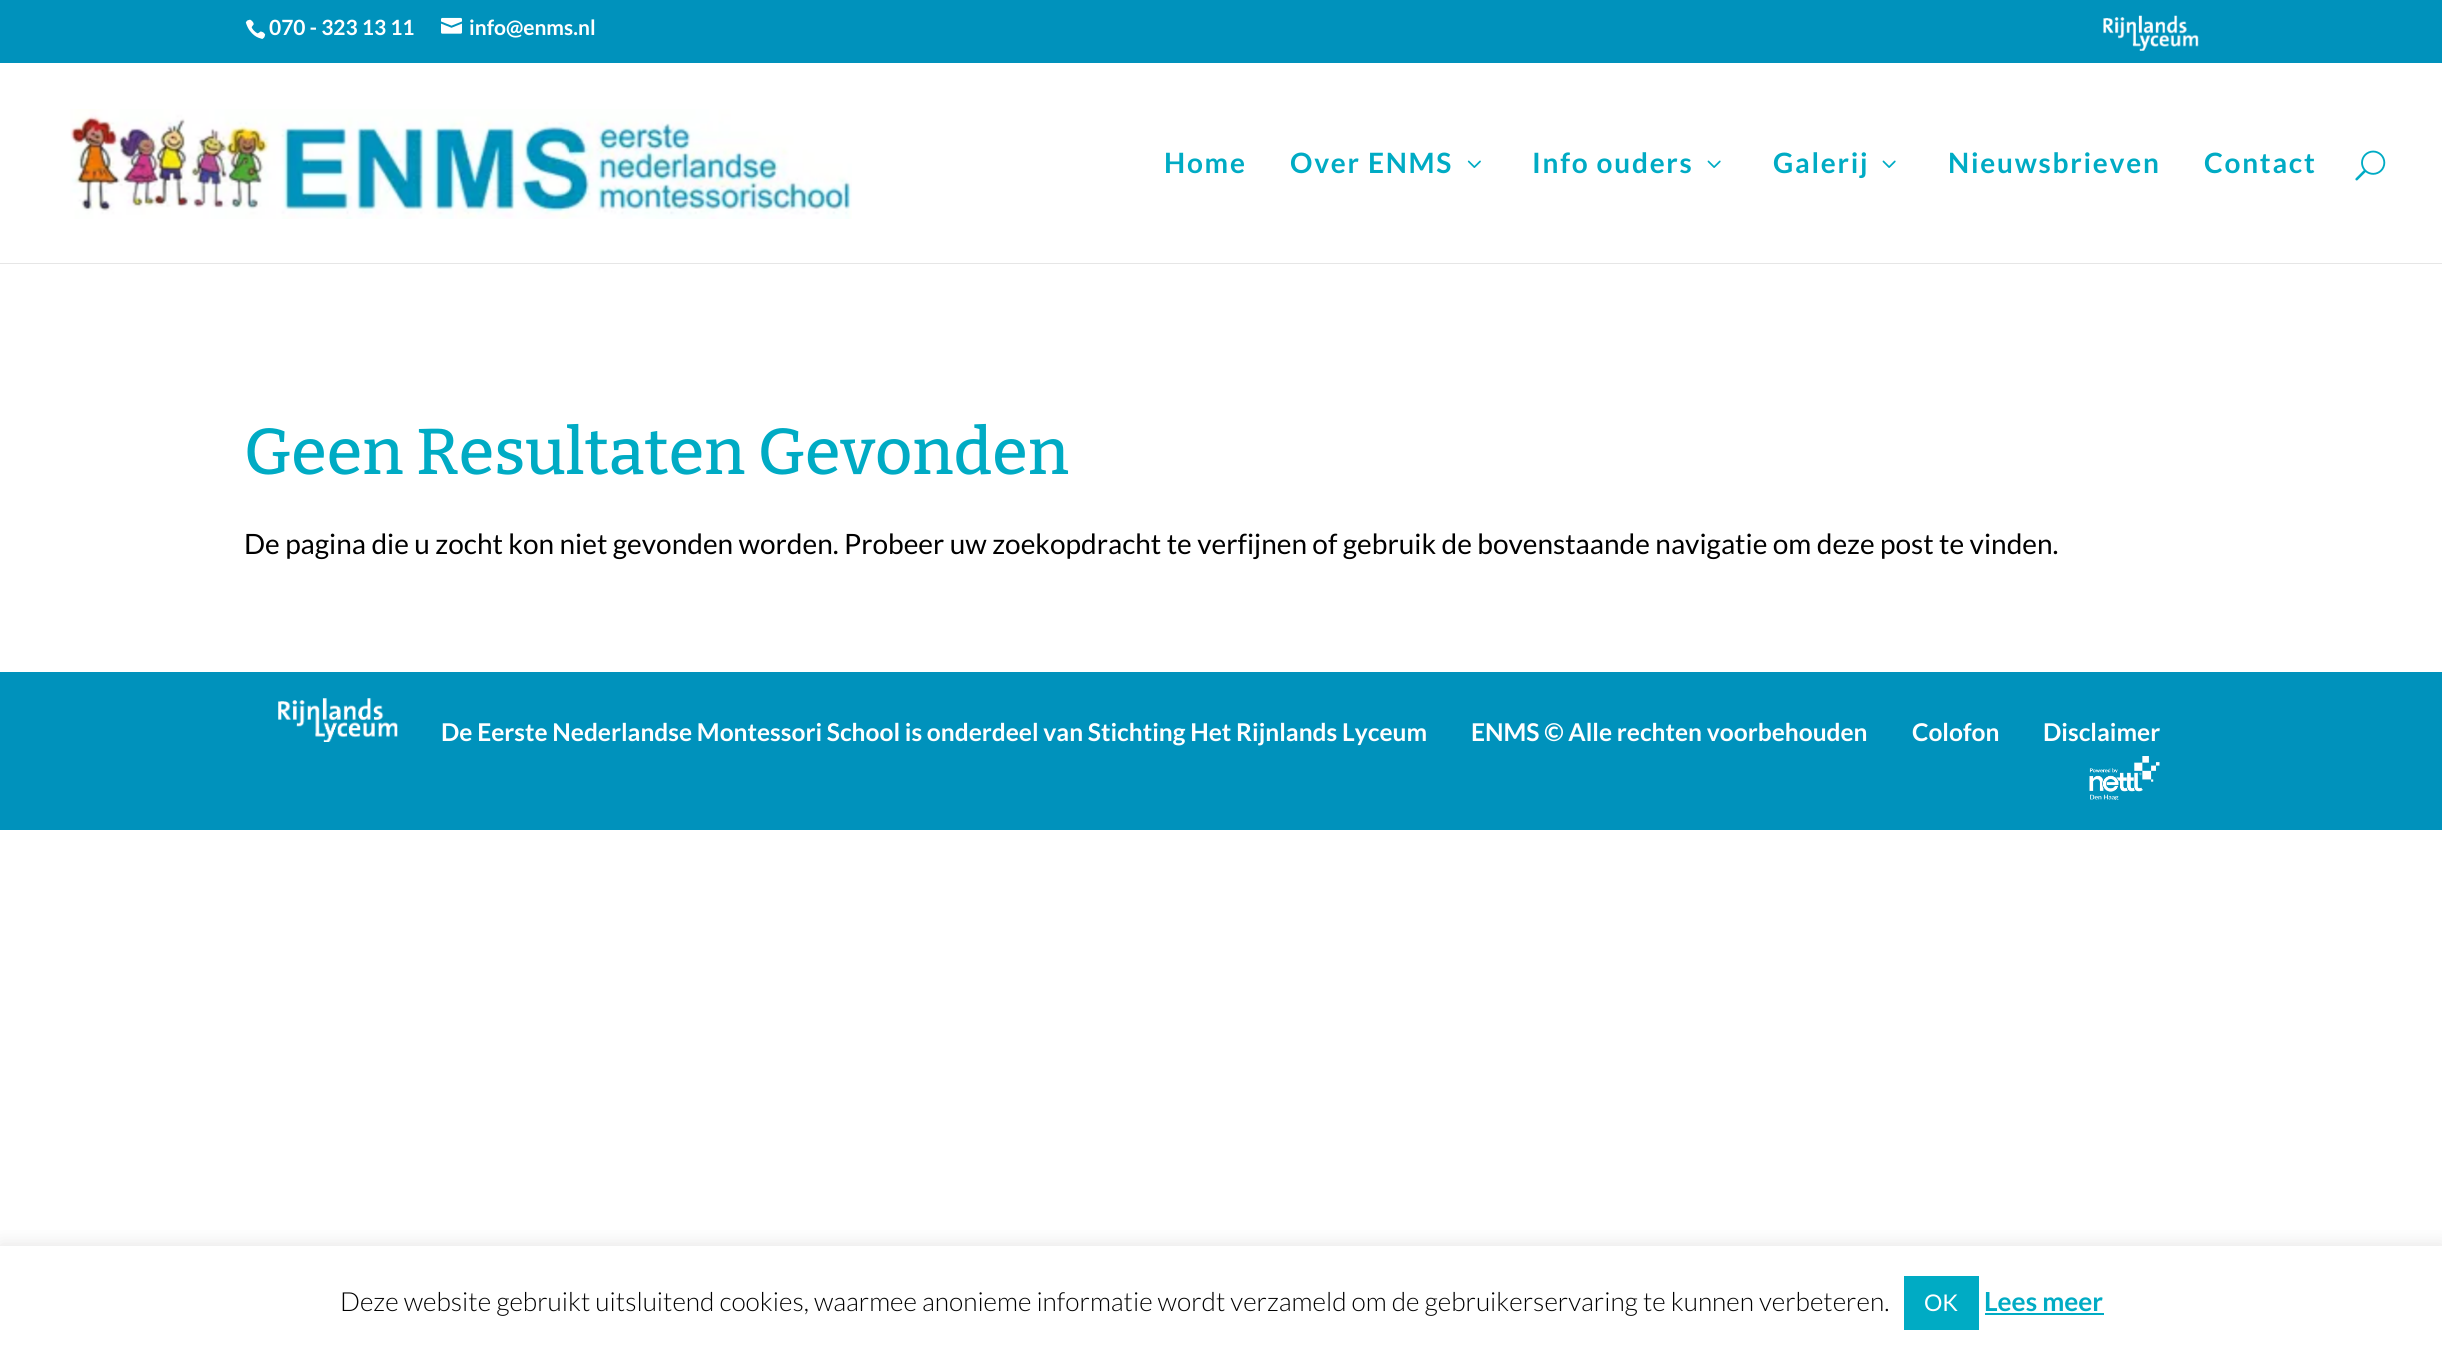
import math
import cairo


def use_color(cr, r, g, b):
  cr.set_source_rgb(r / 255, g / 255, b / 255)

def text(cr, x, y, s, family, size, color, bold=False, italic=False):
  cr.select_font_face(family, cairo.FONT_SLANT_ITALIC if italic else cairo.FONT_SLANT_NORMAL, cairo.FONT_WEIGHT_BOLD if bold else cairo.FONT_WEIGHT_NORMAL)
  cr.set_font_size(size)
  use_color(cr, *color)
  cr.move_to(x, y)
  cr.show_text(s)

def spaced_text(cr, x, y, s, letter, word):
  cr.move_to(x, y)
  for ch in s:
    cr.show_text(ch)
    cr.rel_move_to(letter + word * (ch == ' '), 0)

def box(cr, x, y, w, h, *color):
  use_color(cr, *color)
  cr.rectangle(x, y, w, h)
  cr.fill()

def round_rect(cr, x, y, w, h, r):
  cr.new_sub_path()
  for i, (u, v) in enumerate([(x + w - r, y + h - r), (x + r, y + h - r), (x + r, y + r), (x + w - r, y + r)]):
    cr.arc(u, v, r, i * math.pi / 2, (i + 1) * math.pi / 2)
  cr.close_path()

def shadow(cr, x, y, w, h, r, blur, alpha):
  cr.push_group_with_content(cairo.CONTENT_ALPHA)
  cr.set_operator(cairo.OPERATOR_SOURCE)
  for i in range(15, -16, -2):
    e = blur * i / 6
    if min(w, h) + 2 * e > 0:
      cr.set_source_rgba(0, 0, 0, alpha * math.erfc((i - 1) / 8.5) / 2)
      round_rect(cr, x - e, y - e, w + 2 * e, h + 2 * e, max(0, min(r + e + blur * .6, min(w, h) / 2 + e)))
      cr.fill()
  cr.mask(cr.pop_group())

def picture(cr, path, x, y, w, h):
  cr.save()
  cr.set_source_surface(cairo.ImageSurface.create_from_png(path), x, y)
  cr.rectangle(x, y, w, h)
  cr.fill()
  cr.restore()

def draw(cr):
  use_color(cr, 255, 255, 255)
  cr.paint()
  box(cr, 0, 0, 2442, 63, 0, 146, 188)
  picture(cr, "img_01.png", 245, 19, 21, 20)
  picture(cr, "img_02.png", 441, 17, 21, 17)
  picture(cr, "img_03.png", 2103, 15, 96, 36)
  box(cr, 0, 263, 2442, 1, 230, 230, 230)
  picture(cr, "img_04.png", 70, 109, 782, 110)
  picture(cr, "img_05.png", 1467, 160, 14, 8)
  picture(cr, "img_06.png", 1707, 160, 14, 8)
  picture(cr, "img_06.png", 1882, 160, 14, 8)
  picture(cr, "img_07.png", 2355, 150, 31, 31)
  box(cr, 0, 672, 2442, 158, 0, 146, 188)
  picture(cr, "img_08.png", 278, 698, 120, 44)
  picture(cr, "img_09.png", 2089, 756, 71, 44)
  cr.save()
  cr.rectangle(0, 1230, 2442, 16)
  cr.clip()
  use_color(cr, 172, 171, 171)
  shadow(cr, 0, 1244, 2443, 105, 0, 9, 0.3)
  cr.restore()
  box(cr, 1904, 1276, 75, 54, 0, 171, 196)
  box(cr, 1985, 1313, 119, 2, 0, 171, 196)
  text(cr, 269, 35, "070 - 323 13 11", "Lato", 21, (255, 255, 255), bold=True)
  text(cr, 469, 35, "info@enms.nl", "Lato", 21, (255, 255, 255), bold=True)
  cr.set_font_size(28)
  use_color(cr, 0, 171, 196)
  spaced_text(cr, 1164, 173, "Home", 1.75, 0)
  spaced_text(cr, 1290, 173, "Over ENMS", 1.75, 0)
  spaced_text(cr, 1532, 173, "Info ouders", 1.75, 0)
  spaced_text(cr, 1773, 173, "Galerij", 1.75, 0)
  spaced_text(cr, 1948, 173, "Nieuwsbrieven", 1.75, 0)
  spaced_text(cr, 2204, 173, "Contact", 1.75, 0)
  text(cr, 244, 474, "Geen Resultaten Gevonden", "Bitter Thin", 64.75, (0, 171, 196))
  text(cr, 244, 554, "De pagina die u zocht kon niet gevonden worden. Probeer uw zoekopdracht te verfijnen of gebruik de bovenstaande navigatie om deze post te vinden.", "Lato", 28, (0, 0, 0))
  text(cr, 441, 741, "De Eerste Nederlandse Montessori School is onderdeel van Stichting Het Rijnlands Lyceum", "Lato", 24.5, (255, 255, 255), bold=True)
  text(cr, 1471, 741, "ENMS © Alle rechten voorbehouden", "Lato", 24.5, (255, 255, 255), bold=True)
  text(cr, 1912, 741, "Colofon", "Lato", 24.5, (255, 255, 255), bold=True)
  text(cr, 2043, 741, "Disclaimer", "Lato", 24.5, (255, 255, 255), bold=True)
  text(cr, 340, 1311, "Deze website gebruikt uitsluitend cookies, waarmee anonieme informatie wordt verzameld om de gebruikerservaring te kunnen verbeteren.", "Lato Light", 26.25, (0, 0, 0))
  text(cr, 1924, 1311, "OK", "Lato", 23, (255, 255, 255))
  text(cr, 1984, 1311, "Lees meer", "Lato", 26.25, (0, 171, 196), bold=True)


surface = cairo.ImageSurface(cairo.FORMAT_RGB24, 2442, 1350)
cr = cairo.Context(surface)
options = cairo.FontOptions()
options.set_hint_metrics(cairo.HINT_METRICS_OFF)
options.set_hint_style(cairo.HINT_STYLE_NONE)
cr.set_font_options(options)
cr.set_miter_limit(4)
draw(cr)
surface.write_to_png("out.png")
